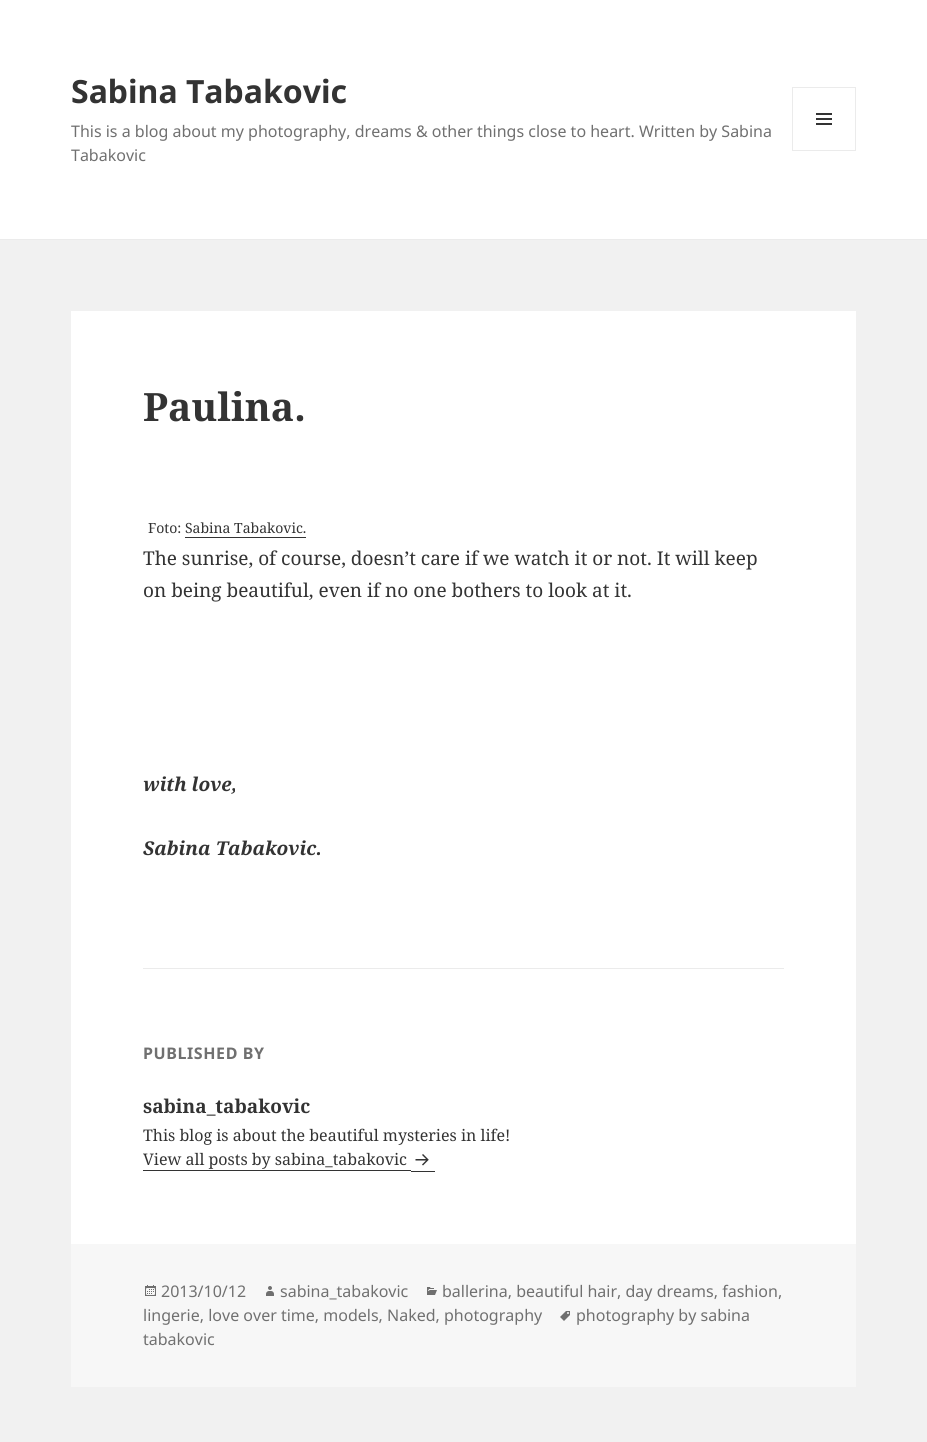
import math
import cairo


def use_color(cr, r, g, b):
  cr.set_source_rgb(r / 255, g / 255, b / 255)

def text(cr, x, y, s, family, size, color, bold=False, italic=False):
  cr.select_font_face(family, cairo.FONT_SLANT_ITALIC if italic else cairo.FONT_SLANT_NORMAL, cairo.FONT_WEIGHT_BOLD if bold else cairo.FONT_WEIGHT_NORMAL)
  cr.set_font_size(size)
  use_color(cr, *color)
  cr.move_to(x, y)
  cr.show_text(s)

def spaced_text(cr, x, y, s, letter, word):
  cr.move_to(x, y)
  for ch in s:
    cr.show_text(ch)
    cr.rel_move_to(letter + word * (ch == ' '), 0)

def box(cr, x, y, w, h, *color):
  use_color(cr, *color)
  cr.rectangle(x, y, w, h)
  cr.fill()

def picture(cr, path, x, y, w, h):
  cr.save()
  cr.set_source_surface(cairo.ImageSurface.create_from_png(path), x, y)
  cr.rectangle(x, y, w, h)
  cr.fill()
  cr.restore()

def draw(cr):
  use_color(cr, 241, 241, 241)
  cr.paint()
  box(cr, 0, 0, 927, 239, 255, 255, 255)
  box(cr, 0, 239, 927, 1, 235, 235, 235)
  cr.rectangle(792.5, 87.5, 63, 63)
  cr.set_line_width(1)
  cr.stroke()
  picture(cr, "img_01.png", 816, 113, 16, 12)
  box(cr, 71, 311, 785, 933, 255, 255, 255)
  box(cr, 185, 537, 121, 1, 51, 51, 51)
  box(cr, 143, 968, 641, 1, 235, 235, 235)
  box(cr, 143, 1170, 268, 1, 51, 51, 51)
  box(cr, 411, 1171, 24, 1, 51, 51, 51)
  picture(cr, "img_02.png", 415, 1154, 14, 12)
  box(cr, 71, 1244, 785, 143, 247, 247, 247)
  picture(cr, "img_03.png", 427, 1287, 10, 8)
  picture(cr, "img_04.png", 145, 1285, 11, 11)
  picture(cr, "img_05.png", 266, 1286, 8, 10)
  picture(cr, "img_06.png", 560, 1311, 10, 10)
  text(cr, 71, 103, "Sabina Tabakovic", "Noto Sans", 32, (51, 51, 51), bold=True)
  text(cr, 71, 137, "This is a blog about my photography, dreams & other things close to heart. Written by Sabina", "Noto Sans", 16, (112, 112, 112))
  text(cr, 71, 161, "Tabakovic", "Noto Sans", 16, (112, 112, 112))
  text(cr, 143, 421, "Paulina.", "Noto Serif", 39, (51, 51, 51), bold=True)
  text(cr, 148, 533, "Foto: Sabina Tabakovic.", "Noto Serif", 14, (51, 51, 51))
  text(cr, 143, 565, "The sunrise, of course, doesn’t care if we watch it or not. It will keep", "Noto Serif", 19, (51, 51, 51))
  text(cr, 143, 597, "on being beautiful, even if no one bothers to look at it.", "Noto Serif", 19, (51, 51, 51))
  text(cr, 143, 791, "with love,", "Noto Serif", 19, (51, 51, 51), bold=True, italic=True)
  text(cr, 143, 855, "Sabina Tabakovic.", "Noto Serif", 19, (51, 51, 51), bold=True, italic=True)
  cr.select_font_face("Noto Sans", cairo.FONT_SLANT_NORMAL, cairo.FONT_WEIGHT_BOLD)
  cr.set_font_size(16)
  use_color(cr, 112, 112, 112)
  spaced_text(cr, 143, 1059, "PUBLISHED BY", 0.6, 0)
  text(cr, 143, 1113, "sabina_tabakovic", "Noto Serif", 19, (51, 51, 51), bold=True)
  text(cr, 143, 1141, "This blog is about the beautiful mysteries in life!", "Noto Serif", 16, (51, 51, 51))
  text(cr, 143, 1165, "View all posts by sabina_tabakovic", "Noto Serif", 16, (51, 51, 51))
  text(cr, 442, 1297, "ballerina, beautiful hair, day dreams, fashion,", "Noto Sans", 16, (112, 112, 112))
  text(cr, 143, 1321, "lingerie, love over time, models, Naked, photography", "Noto Sans", 16, (112, 112, 112))
  text(cr, 161, 1297, "2013/10/12", "Noto Sans", 16, (112, 112, 112))
  text(cr, 280, 1297, "sabina_tabakovic", "Noto Sans", 16, (112, 112, 112))
  text(cr, 576, 1321, "photography by sabina", "Noto Sans", 16, (112, 112, 112))
  text(cr, 143, 1345, "tabakovic", "Noto Sans", 16, (112, 112, 112))


surface = cairo.ImageSurface(cairo.FORMAT_RGB24, 927, 1442)
cr = cairo.Context(surface)
options = cairo.FontOptions()
options.set_hint_metrics(cairo.HINT_METRICS_OFF)
options.set_hint_style(cairo.HINT_STYLE_NONE)
cr.set_font_options(options)
cr.set_miter_limit(4)
draw(cr)
surface.write_to_png("out.png")
